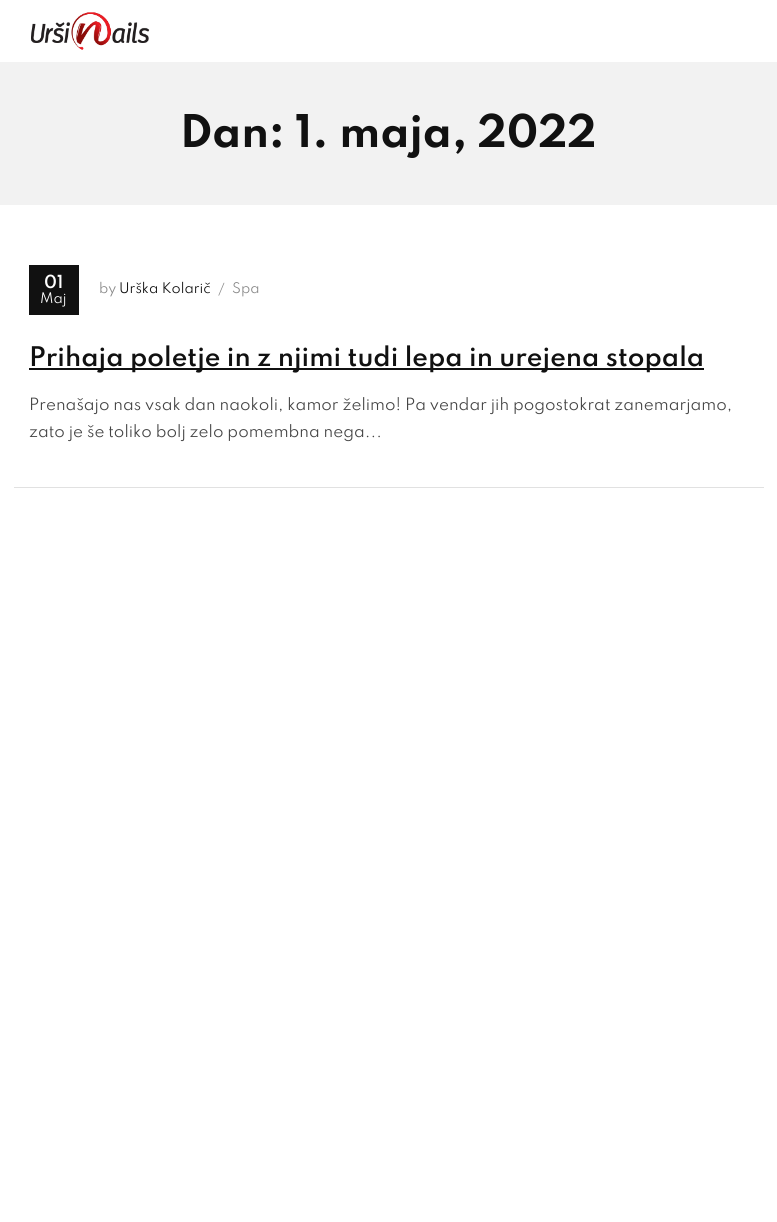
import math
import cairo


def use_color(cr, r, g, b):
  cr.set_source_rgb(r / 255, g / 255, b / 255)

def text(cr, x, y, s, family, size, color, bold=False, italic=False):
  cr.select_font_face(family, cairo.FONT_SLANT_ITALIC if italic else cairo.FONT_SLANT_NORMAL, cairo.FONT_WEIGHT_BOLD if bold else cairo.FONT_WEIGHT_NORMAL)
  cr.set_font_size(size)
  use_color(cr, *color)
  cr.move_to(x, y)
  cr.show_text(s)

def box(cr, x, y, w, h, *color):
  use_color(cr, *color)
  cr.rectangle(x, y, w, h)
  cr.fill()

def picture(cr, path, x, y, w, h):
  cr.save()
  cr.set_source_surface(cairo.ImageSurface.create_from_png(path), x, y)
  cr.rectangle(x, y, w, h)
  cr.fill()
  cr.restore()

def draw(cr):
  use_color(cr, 255, 255, 255)
  cr.paint()
  picture(cr, "img_01.png", 31, 12, 119, 38)
  box(cr, 0, 62, 777, 143, 242, 242, 242)
  box(cr, 14, 487, 750, 1, 225, 225, 225)
  box(cr, 29, 265, 50, 50, 17, 17, 17)
  box(cr, 29, 368, 675, 2, 17, 17, 17)
  text(cr, 180, 147, "Dan: 1. maja, 2022", "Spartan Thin", 40, (17, 17, 17), bold=True)
  text(cr, 44, 288, "01", "Spartan Thin SemiBold", 16, (255, 255, 255))
  text(cr, 40, 303, "Maj", "Spartan Thin", 13, (255, 255, 255))
  text(cr, 99, 293, "by", "Spartan Thin", 13, (136, 136, 136))
  text(cr, 119, 293, "Urška Kolarič", "Spartan Thin", 13, (17, 17, 17))
  text(cr, 218, 294, "/", "Spartan Thin", 13, (136, 136, 136))
  text(cr, 232, 293, "Spa", "Spartan Thin", 13, (136, 136, 136))
  text(cr, 29, 366, "Prihaja poletje in z njimi tudi lepa in urejena stopala", "Spartan Thin SemiBold", 24, (17, 17, 17))
  text(cr, 29, 410, "Prenašajo nas vsak dan naokoli, kamor želimo! Pa vendar jih pogostokrat zanemarjamo,", "Spartan Thin", 15, (68, 68, 68))
  text(cr, 29, 437, "zato je še toliko bolj zelo pomembna nega...", "Spartan Thin", 15, (68, 68, 68))


surface = cairo.ImageSurface(cairo.FORMAT_RGB24, 777, 1222)
cr = cairo.Context(surface)
options = cairo.FontOptions()
options.set_hint_metrics(cairo.HINT_METRICS_OFF)
options.set_hint_style(cairo.HINT_STYLE_NONE)
cr.set_font_options(options)
cr.set_miter_limit(4)
draw(cr)
surface.write_to_png("out.png")
